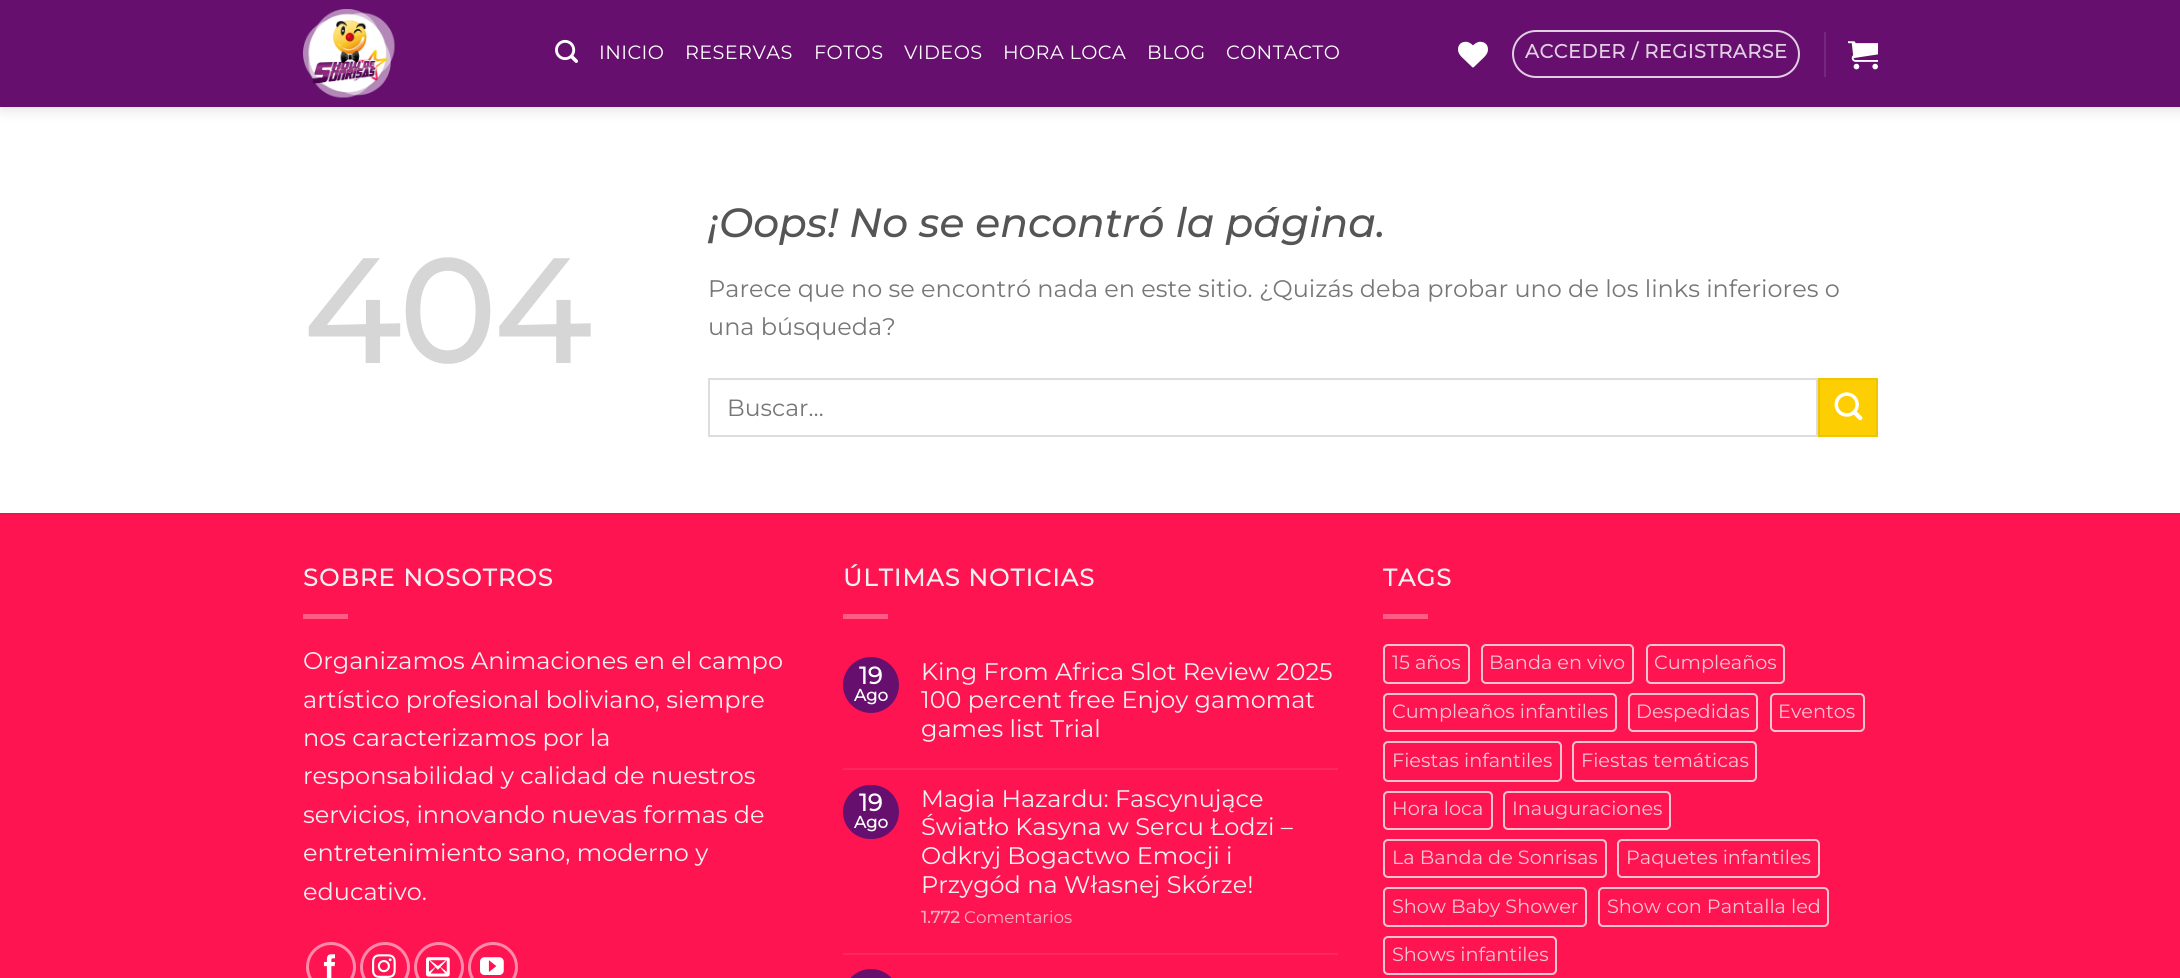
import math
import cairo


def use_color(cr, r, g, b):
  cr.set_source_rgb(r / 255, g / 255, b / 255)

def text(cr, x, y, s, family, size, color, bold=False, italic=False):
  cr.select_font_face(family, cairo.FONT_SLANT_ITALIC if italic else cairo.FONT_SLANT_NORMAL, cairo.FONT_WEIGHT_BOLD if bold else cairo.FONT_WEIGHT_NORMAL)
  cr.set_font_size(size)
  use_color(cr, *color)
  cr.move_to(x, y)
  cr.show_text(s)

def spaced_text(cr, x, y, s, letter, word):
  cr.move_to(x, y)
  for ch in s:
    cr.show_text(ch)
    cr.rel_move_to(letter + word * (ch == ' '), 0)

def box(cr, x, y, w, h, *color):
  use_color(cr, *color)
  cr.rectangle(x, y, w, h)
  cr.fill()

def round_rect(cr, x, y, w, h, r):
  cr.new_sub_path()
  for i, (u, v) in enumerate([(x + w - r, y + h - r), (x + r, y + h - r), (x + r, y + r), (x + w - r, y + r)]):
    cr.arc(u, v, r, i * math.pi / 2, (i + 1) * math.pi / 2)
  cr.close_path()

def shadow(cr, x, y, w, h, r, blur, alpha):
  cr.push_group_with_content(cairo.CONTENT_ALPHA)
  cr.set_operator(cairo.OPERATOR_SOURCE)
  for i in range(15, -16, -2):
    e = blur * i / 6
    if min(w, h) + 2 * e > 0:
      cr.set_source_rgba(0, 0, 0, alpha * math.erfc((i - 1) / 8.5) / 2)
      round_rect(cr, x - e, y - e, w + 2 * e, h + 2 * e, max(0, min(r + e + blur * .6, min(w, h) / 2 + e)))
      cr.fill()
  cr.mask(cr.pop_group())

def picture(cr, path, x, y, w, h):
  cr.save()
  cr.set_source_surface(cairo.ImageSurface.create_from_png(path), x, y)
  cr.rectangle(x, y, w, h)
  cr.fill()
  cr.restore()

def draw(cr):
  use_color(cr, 255, 255, 255)
  cr.paint()
  use_color(cr, 0, 0, 0)
  shadow(cr, 2, 2, 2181, 106, 0, 7.5, 0.15)
  box(cr, 0, 0, 2180, 107, 102, 15, 110)
  picture(cr, "img_01.png", 303, 9, 92, 89)
  picture(cr, "img_02.png", 555, 39, 23, 24)
  picture(cr, "img_03.png", 1458, 41, 30, 27)
  round_rect(cr, 1513, 31, 286, 46, 23)
  use_color(cr, 224, 207, 226)
  cr.stroke()
  box(cr, 1824, 32, 2, 45, 117, 39, 125)
  picture(cr, "img_04.png", 1848, 41, 30, 29)
  cr.rectangle(709, 379, 1108, 57)
  use_color(cr, 221, 221, 221)
  cr.stroke()
  use_color(cr, 253, 206, 1)
  cr.rectangle(1819, 379, 58, 57)
  cr.fill_preserve()
  use_color(cr, 240, 196, 1)
  cr.stroke()
  picture(cr, "img_05.png", 1834, 392, 29, 29)
  box(cr, 0, 515, 2180, 463, 255, 20, 82)
  box(cr, 0, 513, 2180, 2, 242, 19, 78)
  box(cr, 303, 614, 45, 5, 255, 91, 134)
  cr.arc(331, 967, 23.5, 0, 2 * math.pi)
  use_color(cr, 255, 138, 169)
  cr.set_line_width(3)
  cr.stroke()
  picture(cr, "img_06.png", 323, 954, 12, 24)
  cr.arc(385, 967, 23.5, 0, 2 * math.pi)
  cr.stroke()
  picture(cr, "img_07.png", 372, 954, 24, 24)
  cr.arc(439, 967, 23.5, 0, 2 * math.pi)
  cr.stroke()
  picture(cr, "img_08.png", 426, 957, 24, 20)
  cr.arc(493, 967, 23.5, 0, 2 * math.pi)
  cr.stroke()
  picture(cr, "img_09.png", 480, 957, 24, 18)
  box(cr, 843, 614, 45, 5, 255, 91, 134)
  use_color(cr, 102, 15, 110)
  cr.arc(871, 685, 28, 0, 2 * math.pi)
  cr.fill()
  box(cr, 843, 768, 495, 2, 255, 39, 96)
  use_color(cr, 102, 15, 110)
  round_rect(cr, 843, 785, 56, 54, 27)
  cr.fill()
  box(cr, 843, 953, 495, 2, 255, 39, 96)
  use_color(cr, 102, 15, 110)
  round_rect(cr, 843, 969, 56, 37, 28)
  cr.fill()
  box(cr, 1383, 614, 45, 5, 255, 91, 134)
  round_rect(cr, 1384, 645, 85, 38, 4)
  use_color(cr, 244, 197, 209)
  cr.set_line_width(2)
  cr.stroke()
  round_rect(cr, 1482, 645, 151, 38, 4)
  cr.stroke()
  round_rect(cr, 1647, 645, 137, 38, 4)
  cr.stroke()
  round_rect(cr, 1384, 694, 232, 37, 4)
  cr.stroke()
  round_rect(cr, 1629, 694, 128, 37, 4)
  cr.stroke()
  round_rect(cr, 1771, 694, 93, 37, 4)
  cr.stroke()
  round_rect(cr, 1384, 742, 177, 39, 4)
  cr.stroke()
  round_rect(cr, 1573, 742, 183, 39, 4)
  cr.stroke()
  round_rect(cr, 1384, 792, 108, 37, 4)
  cr.stroke()
  round_rect(cr, 1504, 792, 166, 37, 4)
  cr.stroke()
  round_rect(cr, 1384, 840, 222, 37, 4)
  cr.stroke()
  round_rect(cr, 1618, 840, 201, 37, 4)
  cr.stroke()
  round_rect(cr, 1384, 888, 202, 38, 4)
  cr.stroke()
  round_rect(cr, 1599, 888, 229, 38, 4)
  cr.stroke()
  round_rect(cr, 1384, 937, 172, 37, 4)
  cr.stroke()
  cr.select_font_face("Montserrat Thin")
  cr.set_font_size(19.25)
  use_color(cr, 255, 255, 255)
  spaced_text(cr, 599, 59, "INICIO", 0.4, 0)
  spaced_text(cr, 685, 59, "RESERVAS", 0.4, 0)
  spaced_text(cr, 814, 59, "FOTOS", 0.4, 0)
  spaced_text(cr, 904, 59, "VIDEOS", 0.4, 0)
  spaced_text(cr, 1003, 59, "HORA LOCA", 0.4, 0)
  spaced_text(cr, 1147, 59, "BLOG", 0.4, 0)
  spaced_text(cr, 1226, 59, "CONTACTO", 0.4, 0)
  cr.select_font_face("Montserrat", cairo.FONT_SLANT_NORMAL, cairo.FONT_WEIGHT_BOLD)
  use_color(cr, 224, 207, 226)
  spaced_text(cr, 1525, 58, "ACCEDER / REGISTRARSE", 0.6, 0)
  text(cr, 303, 363, "404", "Montserrat", 144, (214, 214, 214), bold=True)
  text(cr, 708, 237, "¡Oops! No se encontró la página.", "Montserrat Thin", 40.75, (85, 85, 85), italic=True)
  text(cr, 708, 297, "Parece que no se encontró nada en este sitio. ¿Quizás deba probar uno de los links inferiores o", "Montserrat Thin", 24, (119, 119, 119))
  text(cr, 708, 335, "una búsqueda?", "Montserrat Thin", 24, (119, 119, 119))
  text(cr, 727, 416, "Buscar…", "Montserrat Thin", 23.5, (119, 119, 119))
  cr.select_font_face("Montserrat", cairo.FONT_SLANT_NORMAL, cairo.FONT_WEIGHT_BOLD)
  cr.set_font_size(24)
  use_color(cr, 241, 241, 241)
  spaced_text(cr, 303, 586, "SOBRE NOSOTROS", 1.25, 0)
  text(cr, 303, 669, "Organizamos Animaciones en el campo", "Montserrat Thin", 24, (241, 241, 241))
  text(cr, 303, 708, "artístico profesional boliviano, siempre", "Montserrat Thin", 24, (241, 241, 241))
  text(cr, 303, 746, "nos caracterizamos por la", "Montserrat Thin", 24, (241, 241, 241))
  text(cr, 303, 784, "responsabilidad y calidad de nuestros", "Montserrat Thin", 24, (241, 241, 241))
  text(cr, 303, 823, "servicios, innovando nuevas formas de", "Montserrat Thin", 24, (241, 241, 241))
  text(cr, 303, 861, "entretenimiento sano, moderno y", "Montserrat Thin", 24, (241, 241, 241))
  text(cr, 303, 900, "educativo.", "Montserrat Thin", 24, (241, 241, 241))
  cr.select_font_face("Montserrat", cairo.FONT_SLANT_NORMAL, cairo.FONT_WEIGHT_BOLD)
  spaced_text(cr, 843, 586, "ÚLTIMAS NOTICIAS", 1.25, 0)
  text(cr, 859, 684, "19", "Montserrat", 24, (255, 255, 255), bold=True)
  text(cr, 854, 701, "Ago", "Montserrat", 16.75, (255, 255, 255), bold=True)
  text(cr, 921, 680, "King From Africa Slot Review 2025", "Montserrat Thin", 24, (241, 241, 241))
  text(cr, 921, 708, "100 percent free Enjoy gamomat", "Montserrat Thin", 24, (241, 241, 241))
  text(cr, 921, 737, "games list Trial", "Montserrat Thin", 24, (241, 241, 241))
  text(cr, 859, 811, "19", "Montserrat", 24, (255, 255, 255), bold=True)
  text(cr, 854, 828, "Ago", "Montserrat", 16.75, (255, 255, 255), bold=True)
  text(cr, 921, 807, "Magia Hazardu: Fascynujące", "Montserrat Thin", 24, (241, 241, 241))
  text(cr, 921, 835, "Światło Kasyna w Sercu Łodzi –", "Montserrat Thin", 24, (241, 241, 241))
  text(cr, 921, 864, "Odkryj Bogactwo Emocji i", "Montserrat Thin", 24, (241, 241, 241))
  text(cr, 921, 893, "Przygód na Własnej Skórze!", "Montserrat Thin", 24, (241, 241, 241))
  text(cr, 921, 923, "1.772", "Montserrat", 16.75, (245, 175, 193), bold=True)
  text(cr, 964, 923, "Comentarios", "Montserrat Thin", 16.75, (245, 175, 193))
  cr.select_font_face("Montserrat", cairo.FONT_SLANT_NORMAL, cairo.FONT_WEIGHT_BOLD)
  cr.set_font_size(24)
  use_color(cr, 241, 241, 241)
  spaced_text(cr, 1383, 586, "TAGS", 1.25, 0)
  text(cr, 1392, 669, "15 años", "Montserrat Thin", 19.25, (244, 197, 209))
  text(cr, 1489, 669, "Banda en vivo", "Montserrat Thin", 19.25, (244, 197, 209))
  text(cr, 1654, 669, "Cumpleaños", "Montserrat Thin", 19.25, (244, 197, 209))
  text(cr, 1392, 718, "Cumpleaños infantiles", "Montserrat Thin", 19.25, (244, 197, 209))
  text(cr, 1636, 718, "Despedidas", "Montserrat Thin", 19.25, (244, 197, 209))
  text(cr, 1778, 718, "Eventos", "Montserrat Thin", 19.25, (244, 197, 209))
  text(cr, 1392, 767, "Fiestas infantiles", "Montserrat Thin", 19.25, (244, 197, 209))
  text(cr, 1581, 767, "Fiestas temáticas", "Montserrat Thin", 19.25, (244, 197, 209))
  text(cr, 1392, 815, "Hora loca", "Montserrat Thin", 19.25, (244, 197, 209))
  text(cr, 1512, 815, "Inauguraciones", "Montserrat Thin", 19.25, (244, 197, 209))
  text(cr, 1392, 864, "La Banda de Sonrisas", "Montserrat Thin", 19.25, (244, 197, 209))
  text(cr, 1626, 864, "Paquetes infantiles", "Montserrat Thin", 19.25, (244, 197, 209))
  text(cr, 1392, 913, "Show Baby Shower", "Montserrat Thin", 19.25, (244, 197, 209))
  text(cr, 1607, 913, "Show con Pantalla led", "Montserrat Thin", 19.25, (244, 197, 209))
  text(cr, 1392, 961, "Shows infantiles", "Montserrat Thin", 19.25, (244, 197, 209))


surface = cairo.ImageSurface(cairo.FORMAT_RGB24, 2180, 978)
cr = cairo.Context(surface)
options = cairo.FontOptions()
options.set_hint_metrics(cairo.HINT_METRICS_OFF)
options.set_hint_style(cairo.HINT_STYLE_NONE)
cr.set_font_options(options)
cr.set_miter_limit(4)
draw(cr)
surface.write_to_png("out.png")
